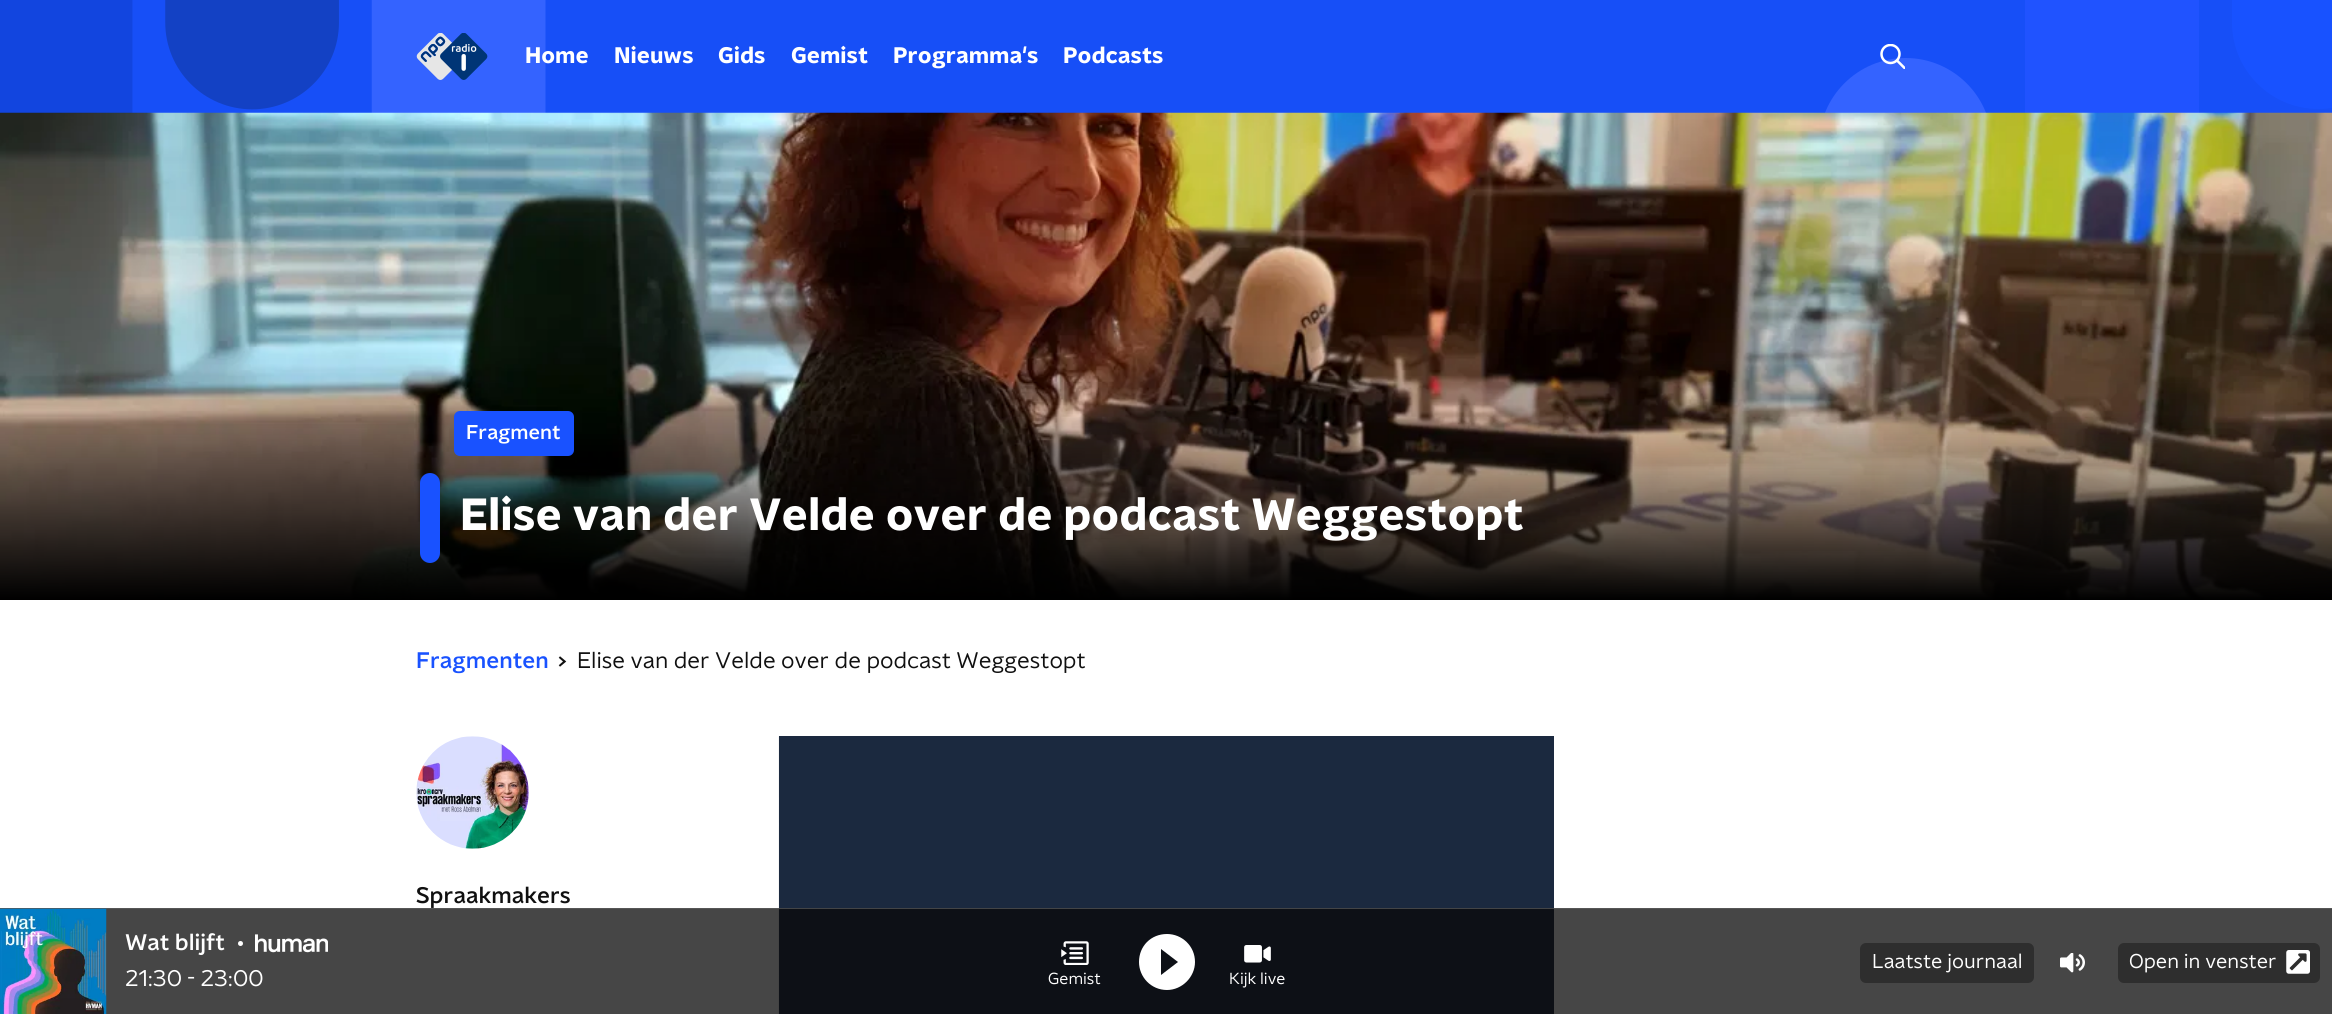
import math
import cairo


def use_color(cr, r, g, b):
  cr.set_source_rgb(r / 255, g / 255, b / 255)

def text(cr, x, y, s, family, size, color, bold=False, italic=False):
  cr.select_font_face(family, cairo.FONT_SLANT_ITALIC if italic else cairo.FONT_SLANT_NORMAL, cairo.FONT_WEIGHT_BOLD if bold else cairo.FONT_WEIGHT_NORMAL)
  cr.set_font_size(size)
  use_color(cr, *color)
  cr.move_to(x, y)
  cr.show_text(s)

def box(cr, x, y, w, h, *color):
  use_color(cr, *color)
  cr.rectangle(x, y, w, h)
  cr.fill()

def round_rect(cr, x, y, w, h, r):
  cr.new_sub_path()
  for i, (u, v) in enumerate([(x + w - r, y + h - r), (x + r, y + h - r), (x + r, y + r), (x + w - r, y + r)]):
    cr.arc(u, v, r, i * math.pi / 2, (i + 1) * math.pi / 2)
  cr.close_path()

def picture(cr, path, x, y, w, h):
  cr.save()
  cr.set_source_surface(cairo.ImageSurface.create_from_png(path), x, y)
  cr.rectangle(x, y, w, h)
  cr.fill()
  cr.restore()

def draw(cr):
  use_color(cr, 255, 255, 255)
  cr.paint()
  picture(cr, "img_01.png", 0, 0, 2332, 113)
  picture(cr, "img_02.png", 416, 33, 72, 47)
  cr.save()
  cr.rectangle(1880, 44, 25, 25)
  cr.clip()
  cr.arc(1890.5, 54, 9, 0, 2 * math.pi)
  use_color(cr, 255, 255, 255)
  cr.set_line_width(2.5)
  cr.stroke()
  cr.new_path()
  cr.move_to(1897, 60.5)
  cr.line_to(1904.5, 68)
  cr.set_line_cap(cairo.LINE_CAP_SQUARE)
  cr.stroke()
  cr.restore()
  picture(cr, "img_03.png", 0, 112, 2332, 488)
  use_color(cr, 25, 82, 255)
  round_rect(cr, 454, 411, 120, 45, 6)
  cr.fill()
  round_rect(cr, 420, 473, 20, 90, 10)
  cr.fill()
  picture(cr, "img_04.png", 558, 656, 9, 11)
  picture(cr, "img_05.png", 416, 736, 113, 113)
  picture(cr, "img_06.png", 778, 736, 1, 278)
  box(cr, 779, 736, 775, 278, 27, 41, 63)
  cr.set_source_rgba(0.035, 0.035, 0.035, 0.75)
  cr.rectangle(0, 908, 2332, 106)
  cr.fill()
  cr.set_source_rgba(0.373, 0.373, 0.373, 0.65)
  cr.rectangle(0, 908, 2332, 1)
  cr.fill()
  picture(cr, "img_07.png", 0, 908, 107, 106)
  use_color(cr, 255, 255, 255)
  cr.arc(240.5, 943.5, 2.5, 0, 2 * math.pi)
  cr.fill()
  picture(cr, "img_08.png", 255, 934, 73, 19)
  use_color(cr, 46, 46, 46)
  round_rect(cr, 1860, 943, 174, 40, 6)
  cr.fill()
  picture(cr, "img_09.png", 2060, 953, 25, 20)
  round_rect(cr, 2118, 943, 202, 40, 6)
  cr.fill()
  picture(cr, "img_10.png", 2286, 950, 24, 24)
  picture(cr, "img_11.png", 1061, 941, 28, 24)
  use_color(cr, 255, 255, 255)
  cr.new_path()
  cr.move_to(1167, 934)
  cr.curve_to(1151, 934, 1139, 946, 1139, 962)
  cr.curve_to(1139, 977, 1151, 990, 1167, 990)
  cr.curve_to(1182, 990, 1195, 977, 1195, 962)
  cr.curve_to(1195, 946, 1182, 934, 1167, 934)
  cr.close_path()
  cr.move_to(1161, 975)
  cr.line_to(1161, 949)
  cr.line_to(1178, 962)
  cr.close_path()
  cr.fill()
  picture(cr, "img_12.png", 1244, 945, 27, 18)
  text(cr, 525, 63, "Home", "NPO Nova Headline", 22.5, (255, 255, 255), bold=True)
  text(cr, 614, 63, "Nieuws", "NPO Nova Headline", 22.5, (255, 255, 255), bold=True)
  text(cr, 718, 63, "Gids", "NPO Nova Headline", 22.5, (255, 255, 255), bold=True)
  text(cr, 791, 63, "Gemist", "NPO Nova Headline", 22.5, (255, 255, 255), bold=True)
  text(cr, 893, 63, "Programma's", "NPO Nova Headline", 22.5, (255, 255, 255), bold=True)
  text(cr, 1063, 63, "Podcasts", "NPO Nova Headline", 22.5, (255, 255, 255), bold=True)
  text(cr, 466, 439, "Fragment", "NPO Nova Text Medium", 20, (255, 255, 255))
  text(cr, 460, 530, "Elise van der Velde over de podcast Weggestopt", "NPO Nova Headline", 45, (255, 255, 255), bold=True)
  text(cr, 416, 668, "Fragmenten", "NPO Nova Text Medium", 22.5, (25, 82, 255))
  text(cr, 577, 668, "Elise van der Velde over de podcast Weggestopt", "NPO Nova Text", 22.5, (16, 16, 16))
  text(cr, 416, 903, "Spraakmakers", "NPO Nova Text Medium", 22.5, (16, 16, 16))
  text(cr, 125, 950, "Wat blijft", "NPO Nova Text Medium", 22.5, (255, 255, 255))
  text(cr, 125, 986, "21:30 - 23:00", "NPO Nova Text", 22.5, (255, 255, 255))
  text(cr, 1872, 968, "Laatste journaal", "NPO Nova Text", 20, (255, 255, 255))
  text(cr, 2129, 968, "Open in venster", "NPO Nova Text", 20, (255, 255, 255))
  text(cr, 1048, 984, "Gemist", "NPO Nova Text", 16, (255, 255, 255))
  text(cr, 1229, 984, "Kijk live", "NPO Nova Text", 16, (255, 255, 255))


surface = cairo.ImageSurface(cairo.FORMAT_RGB24, 2332, 1014)
cr = cairo.Context(surface)
options = cairo.FontOptions()
options.set_hint_metrics(cairo.HINT_METRICS_OFF)
options.set_hint_style(cairo.HINT_STYLE_NONE)
cr.set_font_options(options)
cr.set_miter_limit(4)
draw(cr)
surface.write_to_png("out.png")
